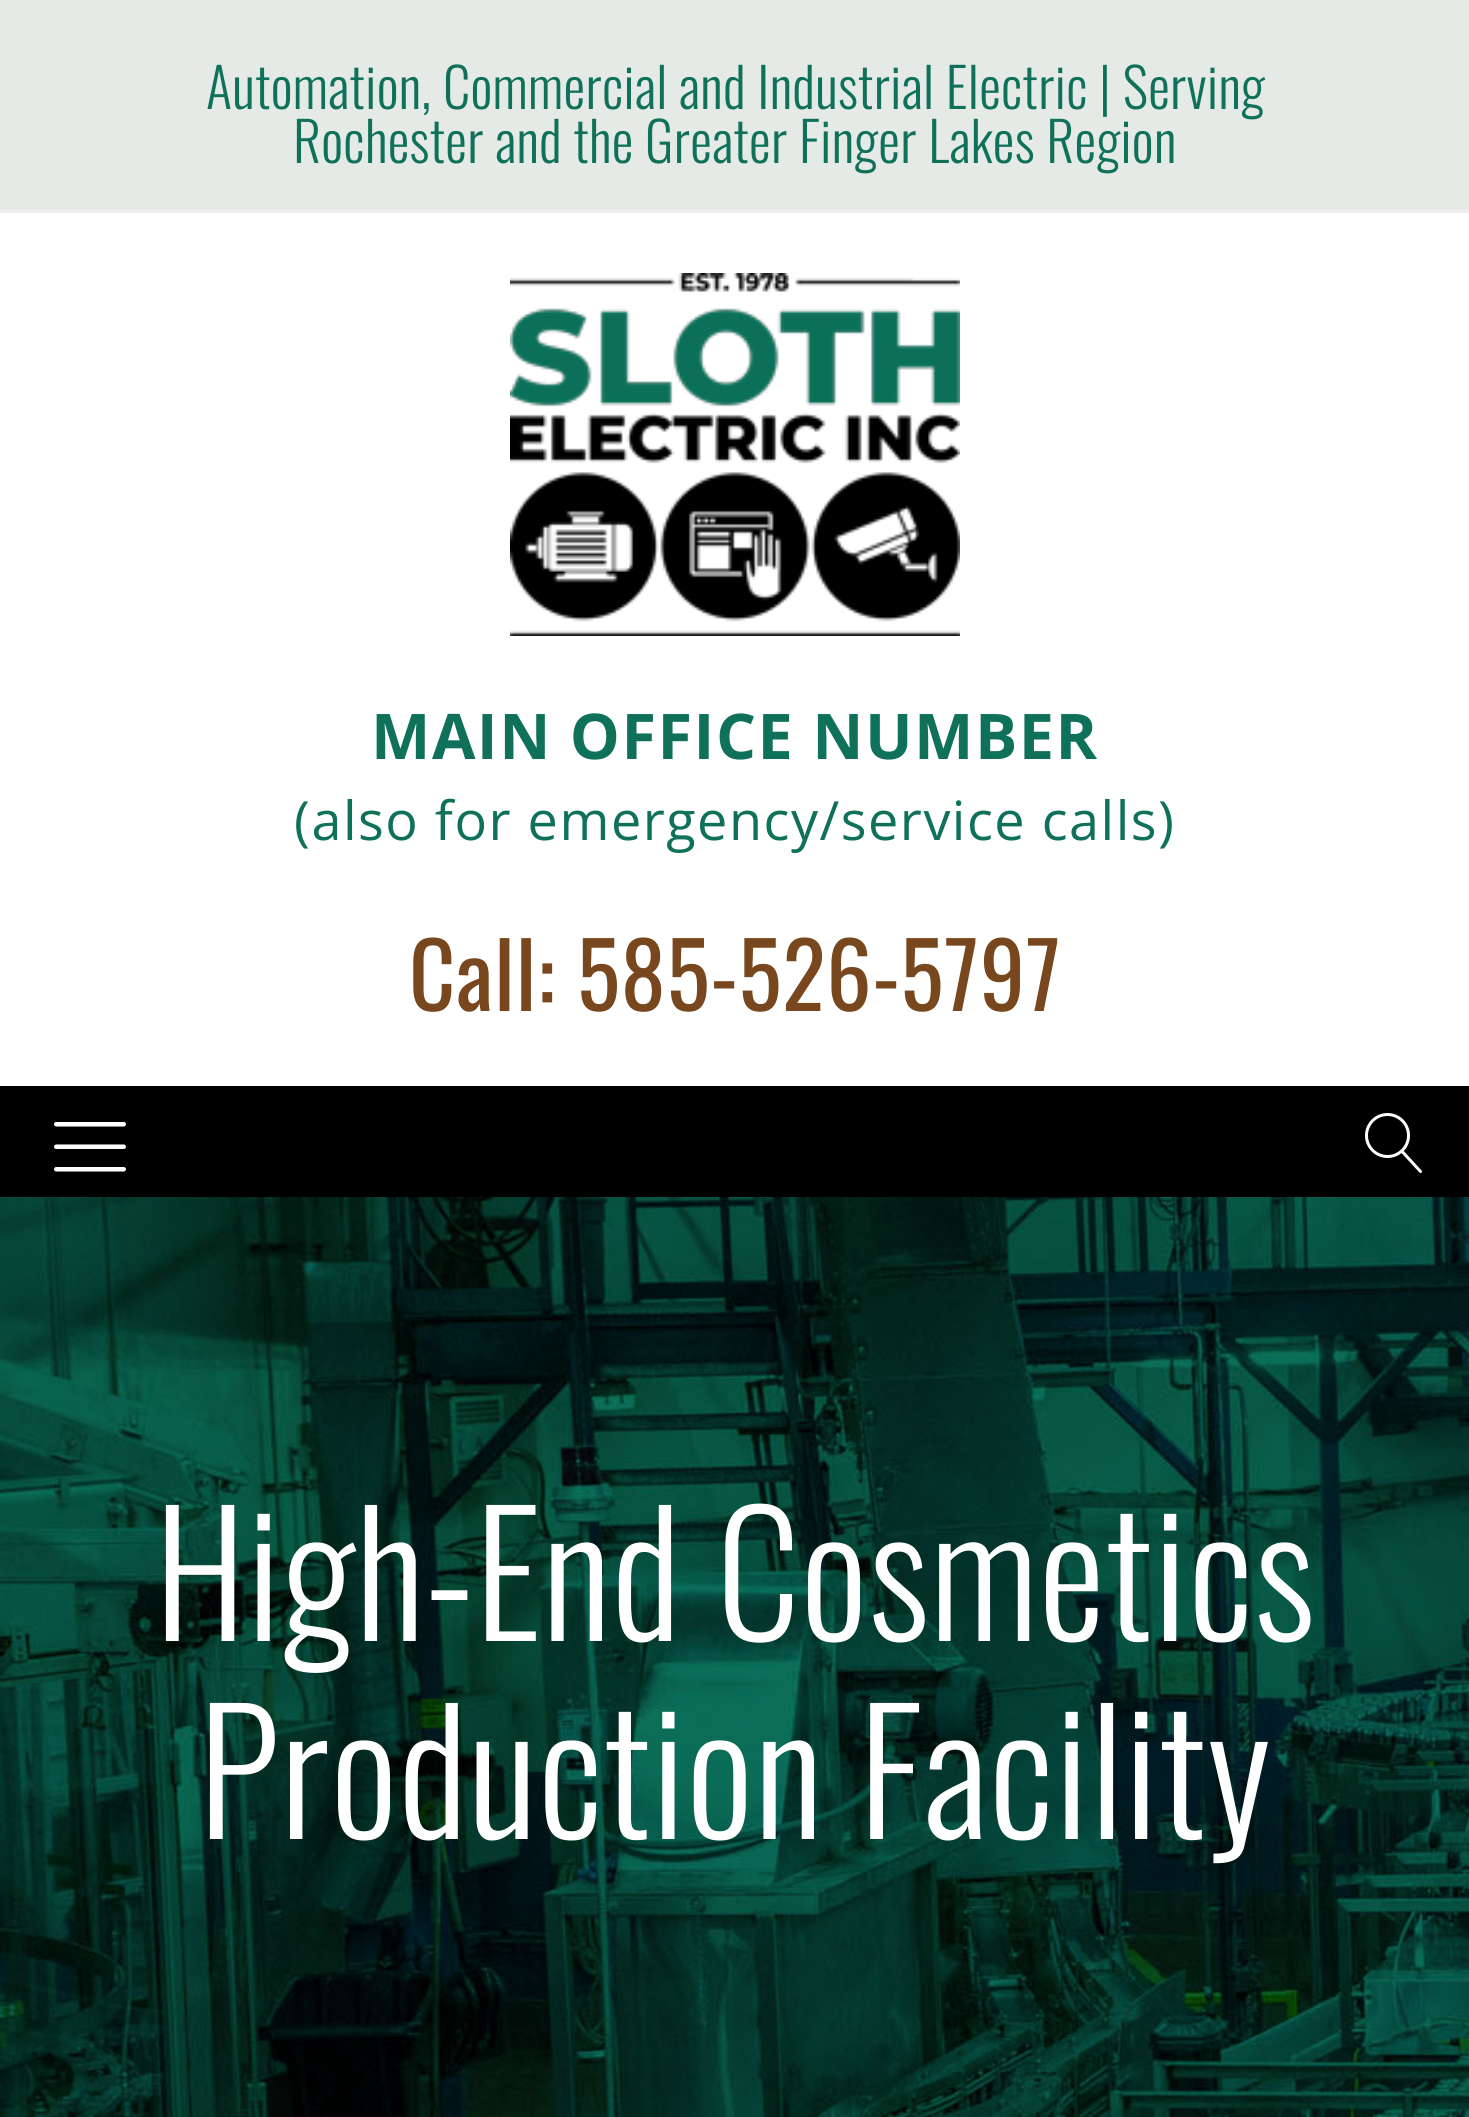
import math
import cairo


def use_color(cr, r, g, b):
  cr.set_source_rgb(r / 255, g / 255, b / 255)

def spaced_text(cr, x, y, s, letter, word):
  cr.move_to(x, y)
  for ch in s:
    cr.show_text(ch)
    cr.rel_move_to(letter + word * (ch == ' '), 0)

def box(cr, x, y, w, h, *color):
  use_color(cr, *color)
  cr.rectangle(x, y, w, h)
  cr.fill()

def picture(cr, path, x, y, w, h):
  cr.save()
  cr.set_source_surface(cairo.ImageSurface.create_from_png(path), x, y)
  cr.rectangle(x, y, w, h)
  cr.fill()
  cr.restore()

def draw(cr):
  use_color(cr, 255, 255, 255)
  cr.paint()
  box(cr, 0, 0, 1469, 210, 229, 234, 231)
  box(cr, 0, 210, 1469, 3, 238, 238, 238)
  picture(cr, "img_01.png", 510, 273, 450, 363)
  box(cr, 0, 1086, 1469, 111, 0, 0, 0)
  picture(cr, "img_02.png", 54, 1122, 72, 50)
  picture(cr, "img_03.png", 1365, 1113, 57, 60)
  picture(cr, "img_04.png", 0, 1197, 1469, 920)
  cr.select_font_face("Oswald Light")
  cr.set_font_size(54.6)
  use_color(cr, 16, 113, 91)
  spaced_text(cr, 206, 109, "Automation, Commercial and Industrial Electric | Serving", 0.3, 0)
  spaced_text(cr, 293, 163, "Rochester and the Greater Finger Lakes Region", 0.3, 0)
  cr.select_font_face("Open Sans", cairo.FONT_SLANT_NORMAL, cairo.FONT_WEIGHT_BOLD)
  cr.set_font_size(63)
  spaced_text(cr, 371, 759, "MAIN OFFICE NUMBER", 1.5, 0)
  cr.select_font_face("Open Sans")
  cr.set_font_size(54)
  spaced_text(cr, 294, 840, "(also for emergency/service calls)", 1.5, 0)
  cr.select_font_face("Oswald")
  cr.set_font_size(90)
  use_color(cr, 120, 71, 29)
  spaced_text(cr, 409, 1011, "Call: 585-526-5797", 0.9, 0)
  cr.select_font_face("Oswald Light")
  cr.set_font_size(168)
  use_color(cr, 255, 255, 255)
  spaced_text(cr, 154, 1641, "High-End Cosmetics", 0.6, 0)
  spaced_text(cr, 198, 1839, "Production Facility", 0.6, 0)


surface = cairo.ImageSurface(cairo.FORMAT_RGB24, 1469, 2117)
cr = cairo.Context(surface)
options = cairo.FontOptions()
options.set_hint_metrics(cairo.HINT_METRICS_OFF)
options.set_hint_style(cairo.HINT_STYLE_NONE)
cr.set_font_options(options)
cr.set_miter_limit(4)
draw(cr)
surface.write_to_png("out.png")
